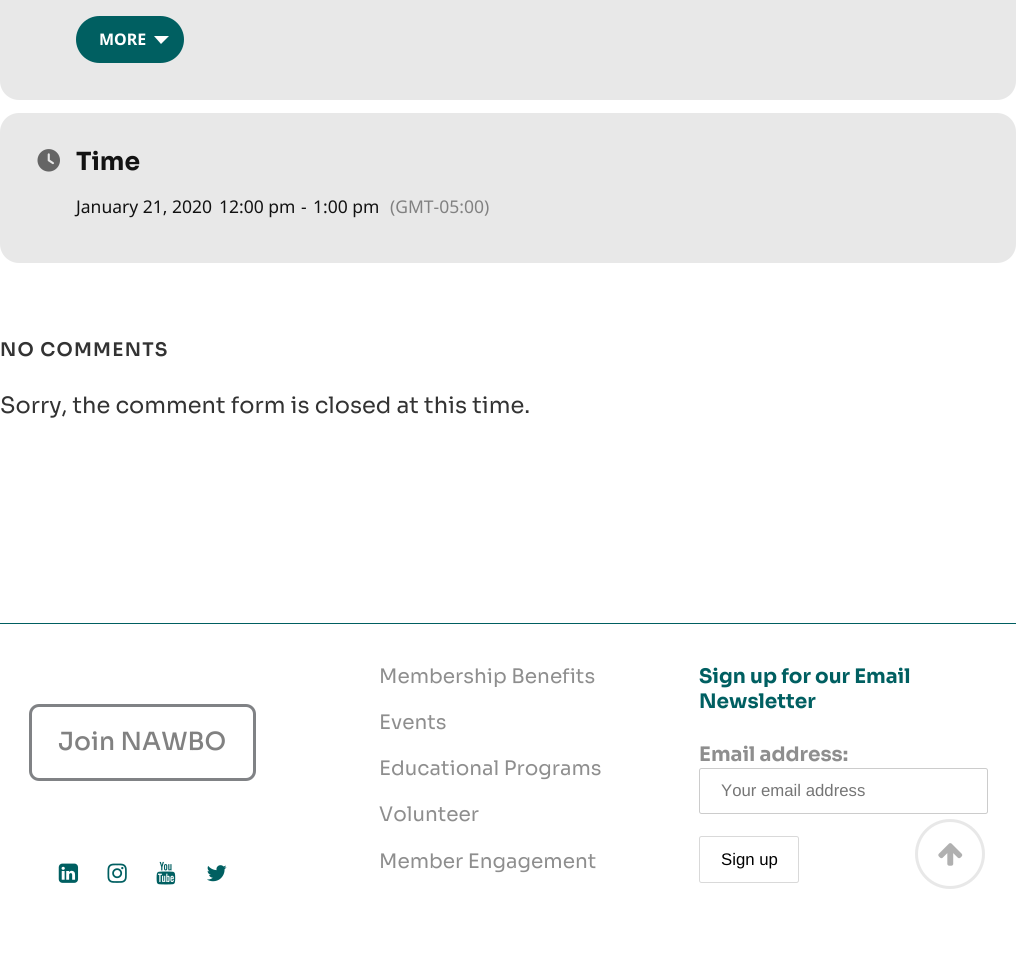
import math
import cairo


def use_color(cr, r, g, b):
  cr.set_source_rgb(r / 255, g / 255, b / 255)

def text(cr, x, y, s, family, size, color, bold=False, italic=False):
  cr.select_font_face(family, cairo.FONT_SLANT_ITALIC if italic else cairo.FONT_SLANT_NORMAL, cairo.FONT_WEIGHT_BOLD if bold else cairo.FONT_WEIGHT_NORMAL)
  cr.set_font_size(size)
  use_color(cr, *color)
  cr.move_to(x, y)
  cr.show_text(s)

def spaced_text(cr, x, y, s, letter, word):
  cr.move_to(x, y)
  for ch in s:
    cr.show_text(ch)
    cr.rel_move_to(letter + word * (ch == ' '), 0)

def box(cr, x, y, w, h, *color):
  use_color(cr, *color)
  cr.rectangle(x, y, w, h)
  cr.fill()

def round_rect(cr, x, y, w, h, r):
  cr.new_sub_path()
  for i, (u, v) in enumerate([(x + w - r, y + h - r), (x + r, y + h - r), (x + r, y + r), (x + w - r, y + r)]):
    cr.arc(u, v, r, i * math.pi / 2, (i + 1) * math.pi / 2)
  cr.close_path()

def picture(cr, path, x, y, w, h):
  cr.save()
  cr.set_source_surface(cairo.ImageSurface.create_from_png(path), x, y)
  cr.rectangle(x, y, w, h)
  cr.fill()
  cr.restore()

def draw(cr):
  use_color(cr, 255, 255, 255)
  cr.paint()
  use_color(cr, 232, 232, 232)
  round_rect(cr, 0, -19, 1016, 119, 19)
  cr.fill()
  use_color(cr, 0, 95, 97)
  round_rect(cr, 76, 16, 108, 47, 23.5)
  cr.fill()
  use_color(cr, 255, 255, 255)
  cr.new_path()
  cr.move_to(154, 36)
  cr.line_to(169, 36)
  cr.line_to(161, 44)
  cr.close_path()
  cr.fill()
  use_color(cr, 232, 232, 232)
  round_rect(cr, 0, 113, 1016, 150, 19)
  cr.fill()
  picture(cr, "img_01.png", 37, 149, 23, 23)
  box(cr, 0, 623, 1016, 1, 0, 95, 97)
  round_rect(cr, 30.5, 705.5, 224, 74, 8.5)
  use_color(cr, 128, 130, 133)
  cr.set_line_width(3)
  cr.stroke()
  picture(cr, "img_02.png", 58, 863, 21, 20)
  picture(cr, "img_03.png", 107, 863, 20, 20)
  picture(cr, "img_04.png", 156, 861, 20, 24)
  picture(cr, "img_05.png", 207, 865, 20, 17)
  round_rect(cr, 699.5, 768.5, 288, 45, 2)
  use_color(cr, 204, 204, 204)
  cr.set_line_width(1)
  cr.stroke()
  round_rect(cr, 699.5, 836.5, 99, 46, 2)
  use_color(cr, 217, 217, 217)
  cr.stroke()
  cr.arc(950, 854, 33.5, 0, 2 * math.pi)
  use_color(cr, 232, 232, 232)
  cr.set_line_width(3)
  cr.stroke()
  picture(cr, "img_06.png", 938, 843, 25, 23)
  text(cr, 99, 45, "MORE", "Noto Sans", 16, (255, 255, 255), bold=True)
  text(cr, 76, 170, "Time", "Sora", 25, (18, 18, 18), bold=True)
  text(cr, 76, 213, "January 21, 2020", "Noto Sans", 17.5, (18, 18, 18))
  text(cr, 219, 213, "12:00 pm", "Noto Sans", 17.5, (18, 18, 18))
  text(cr, 301, 213, "-", "Noto Sans", 17.5, (18, 18, 18))
  text(cr, 313, 213, "1:00 pm", "Noto Sans", 17.5, (18, 18, 18))
  text(cr, 390, 213, "(GMT-05:00)", "Noto Sans", 17.5, (129, 129, 129))
  cr.select_font_face("Sora SemiBold")
  cr.set_font_size(18.75)
  use_color(cr, 51, 51, 51)
  spaced_text(cr, 0, 356, "NO COMMENTS", 1.25, 0)
  text(cr, 0, 413, "Sorry, the comment form is closed at this time.", "Sora", 22.5, (51, 51, 51))
  text(cr, 58, 750, "Join NAWBO", "Sora Medium", 25, (129, 129, 129))
  text(cr, 379, 683, "Membership Benefits", "Sora", 20, (142, 142, 142))
  text(cr, 379, 729, "Events", "Sora", 20, (142, 142, 142))
  text(cr, 379, 775, "Educational Programs", "Sora", 20, (142, 142, 142))
  text(cr, 379, 821, "Volunteer", "Sora", 20, (142, 142, 142))
  text(cr, 379, 868, "Member Engagement", "Sora", 20, (142, 142, 142))
  text(cr, 699, 683, "Sign up for our Email", "Sora", 20, (0, 95, 97), bold=True)
  text(cr, 699, 708, "Newsletter", "Sora", 20, (0, 95, 97), bold=True)
  text(cr, 699, 761, "Email address:", "Sora", 20, (142, 142, 142), bold=True)
  text(cr, 721, 796, "Your email address", "Liberation Sans", 16.75, (117, 117, 117))
  text(cr, 721, 865, "Sign up", "Liberation Sans", 16.75, (0, 0, 0))


surface = cairo.ImageSurface(cairo.FORMAT_RGB24, 1016, 970)
cr = cairo.Context(surface)
options = cairo.FontOptions()
options.set_hint_metrics(cairo.HINT_METRICS_OFF)
options.set_hint_style(cairo.HINT_STYLE_NONE)
cr.set_font_options(options)
cr.set_miter_limit(4)
draw(cr)
surface.write_to_png("out.png")
